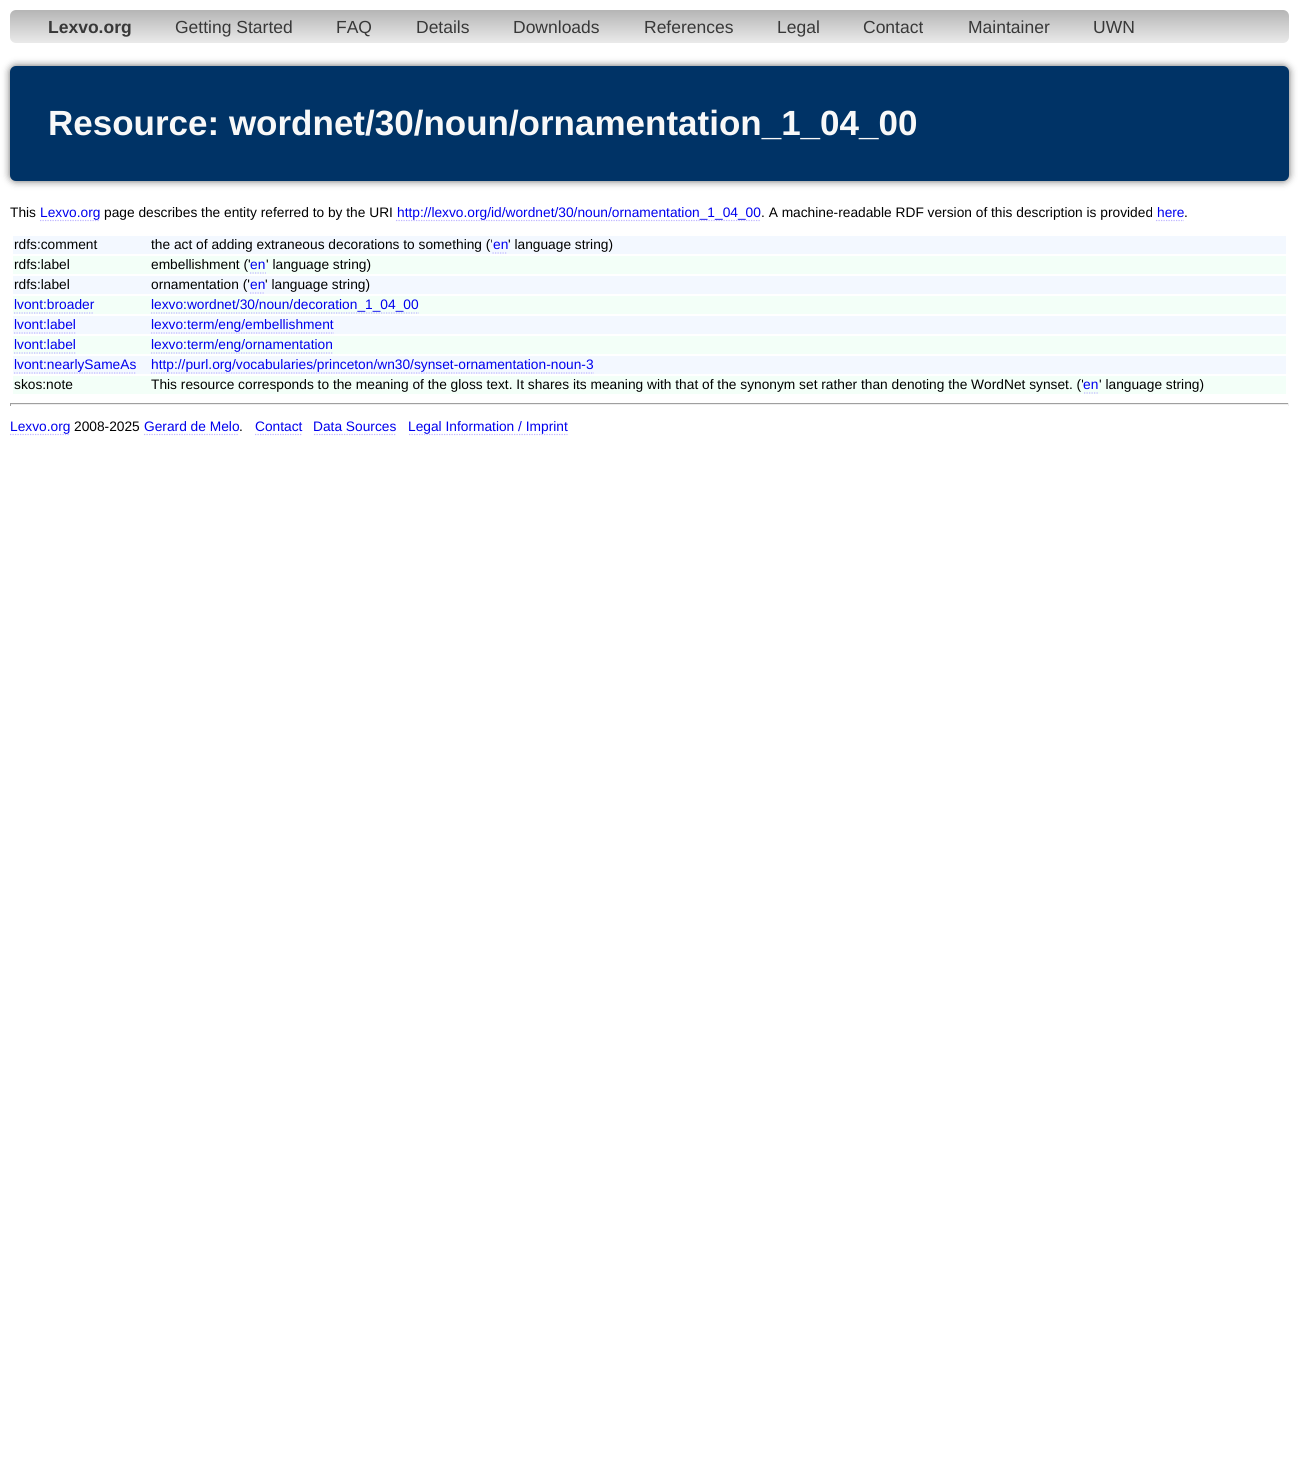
import math
import cairo


def use_color(cr, r, g, b):
  cr.set_source_rgb(r / 255, g / 255, b / 255)

def text(cr, x, y, s, family, size, color, bold=False, italic=False):
  cr.select_font_face(family, cairo.FONT_SLANT_ITALIC if italic else cairo.FONT_SLANT_NORMAL, cairo.FONT_WEIGHT_BOLD if bold else cairo.FONT_WEIGHT_NORMAL)
  cr.set_font_size(size)
  use_color(cr, *color)
  cr.move_to(x, y)
  cr.show_text(s)

def box(cr, x, y, w, h, *color):
  use_color(cr, *color)
  cr.rectangle(x, y, w, h)
  cr.fill()

def round_rect(cr, x, y, w, h, r):
  cr.new_sub_path()
  for i, (u, v) in enumerate([(x + w - r, y + h - r), (x + r, y + h - r), (x + r, y + r), (x + w - r, y + r)]):
    cr.arc(u, v, r, i * math.pi / 2, (i + 1) * math.pi / 2)
  cr.close_path()

def shadow(cr, x, y, w, h, r, blur, alpha):
  cr.push_group_with_content(cairo.CONTENT_ALPHA)
  cr.set_operator(cairo.OPERATOR_SOURCE)
  for i in range(15, -16, -2):
    e = blur * i / 6
    if min(w, h) + 2 * e > 0:
      cr.set_source_rgba(0, 0, 0, alpha * math.erfc((i - 1) / 8.5) / 2)
      round_rect(cr, x - e, y - e, w + 2 * e, h + 2 * e, max(0, min(r + e + blur * .6, min(w, h) / 2 + e)))
      cr.fill()
  cr.mask(cr.pop_group())

def draw(cr):
  use_color(cr, 255, 255, 255)
  cr.paint()
  gradient = cairo.LinearGradient(649, 10, 649, 43)
  gradient.add_color_stop_rgba(0, 0.71, 0.71, 0.71, 1)
  gradient.add_color_stop_rgba(1, 0.918, 0.918, 0.918, 1)
  cr.set_source(gradient)
  round_rect(cr, 10, 10, 1279, 33, 6)
  cr.fill()
  use_color(cr, 0, 0, 0)
  shadow(cr, 10, 66, 1279, 115, 6, 4, 0.6)
  use_color(cr, 0, 51, 102)
  round_rect(cr, 10, 66, 1279, 115, 6)
  cr.fill()
  cr.new_path()
  cr.move_to(40, 220.5)
  cr.line_to(100, 220.5)
  use_color(cr, 191, 182, 255)
  cr.set_line_width(1.2)
  cr.set_dash([1.25, 1.25])
  cr.stroke()
  cr.new_path()
  cr.move_to(396, 220.5)
  cr.line_to(761, 220.5)
  cr.stroke()
  cr.new_path()
  cr.move_to(1156, 220.5)
  cr.line_to(1184, 220.5)
  cr.stroke()
  box(cr, 13, 236, 1273, 18, 243, 248, 255)
  cr.new_path()
  cr.move_to(492.5, 253)
  cr.line_to(507.5, 253)
  use_color(cr, 191, 182, 255)
  cr.stroke()
  box(cr, 13, 256, 1273, 18, 243, 255, 248)
  cr.new_path()
  cr.move_to(250, 273)
  cr.line_to(266, 273)
  use_color(cr, 191, 182, 255)
  cr.stroke()
  box(cr, 13, 276, 1273, 18, 243, 248, 255)
  cr.new_path()
  cr.move_to(250, 293)
  cr.line_to(265, 293)
  use_color(cr, 191, 182, 255)
  cr.stroke()
  box(cr, 13, 296, 1273, 18, 243, 255, 248)
  cr.new_path()
  cr.move_to(14, 313)
  cr.line_to(94, 313)
  use_color(cr, 191, 182, 255)
  cr.stroke()
  cr.new_path()
  cr.move_to(151, 313)
  cr.line_to(419, 313)
  cr.stroke()
  box(cr, 13, 316, 1273, 18, 243, 248, 255)
  cr.new_path()
  cr.move_to(14, 333)
  cr.line_to(76, 333)
  use_color(cr, 191, 182, 255)
  cr.stroke()
  cr.new_path()
  cr.move_to(151, 333)
  cr.line_to(334, 333)
  cr.stroke()
  box(cr, 13, 336, 1273, 18, 243, 255, 248)
  cr.new_path()
  cr.move_to(14, 353)
  cr.line_to(76, 353)
  use_color(cr, 191, 182, 255)
  cr.stroke()
  cr.new_path()
  cr.move_to(151, 353)
  cr.line_to(332.5, 353)
  cr.stroke()
  box(cr, 13, 356, 1273, 18, 243, 248, 255)
  cr.new_path()
  cr.move_to(14, 373)
  cr.line_to(136, 373)
  use_color(cr, 191, 182, 255)
  cr.stroke()
  cr.new_path()
  cr.move_to(151, 373)
  cr.line_to(594, 373)
  cr.stroke()
  box(cr, 13, 376, 1273, 18, 243, 255, 248)
  cr.new_path()
  cr.move_to(1084, 393)
  cr.line_to(1099, 393)
  use_color(cr, 191, 182, 255)
  cr.stroke()
  box(cr, 10, 403, 1279, 1, 159, 159, 159)
  box(cr, 1288, 403, 1, 3, 238, 238, 238)
  box(cr, 10, 404, 1279, 1, 238, 238, 238)
  box(cr, 10, 403, 1, 3, 159, 159, 159)
  cr.new_path()
  cr.move_to(10, 434.5)
  cr.line_to(70, 434.5)
  use_color(cr, 191, 182, 255)
  cr.stroke()
  cr.new_path()
  cr.move_to(144, 434.5)
  cr.line_to(239, 434.5)
  cr.stroke()
  cr.new_path()
  cr.move_to(255, 434.5)
  cr.line_to(302.5, 434.5)
  cr.stroke()
  cr.new_path()
  cr.move_to(314, 434.5)
  cr.line_to(396, 434.5)
  cr.stroke()
  cr.new_path()
  cr.move_to(409, 434.5)
  cr.line_to(567.5, 434.5)
  cr.stroke()
  text(cr, 48, 33, "Lexvo.org", "Liberation Sans", 17.5, (56, 56, 56), bold=True)
  text(cr, 175, 33, "Getting Started", "Liberation Sans", 17.5, (56, 56, 56))
  text(cr, 336, 33, "FAQ", "Liberation Sans", 17.5, (56, 56, 56))
  text(cr, 416, 33, "Details", "Liberation Sans", 17.5, (56, 56, 56))
  text(cr, 513, 33, "Downloads", "Liberation Sans", 17.5, (56, 56, 56))
  text(cr, 644, 33, "References", "Liberation Sans", 17.5, (56, 56, 56))
  text(cr, 777, 33, "Legal", "Liberation Sans", 17.5, (56, 56, 56))
  text(cr, 863, 33, "Contact", "Liberation Sans", 17.5, (56, 56, 56))
  text(cr, 968, 33, "Maintainer", "Liberation Sans", 17.5, (56, 56, 56))
  text(cr, 1093, 33, "UWN", "Liberation Sans", 17.5, (56, 56, 56))
  text(cr, 48, 135, "Resource: wordnet/30/noun/ornamentation_1_04_00", "Liberation Sans", 35, (248, 248, 248), bold=True)
  text(cr, 10, 217, "This", "Liberation Sans", 13.75, (0, 0, 0))
  text(cr, 40, 217, "Lexvo.org", "Liberation Sans", 13.75, (0, 0, 238))
  text(cr, 104, 217, "page describes the entity referred to by the URI", "Liberation Sans", 13.75, (0, 0, 0))
  text(cr, 397, 217, "http://lexvo.org/id/wordnet/30/noun/ornamentation_1_04_00", "Liberation Sans", 13.75, (0, 0, 238))
  text(cr, 761, 217, ". A machine-readable RDF version of this description is provided", "Liberation Sans", 13.75, (0, 0, 0))
  text(cr, 1157, 217, "here", "Liberation Sans", 13.75, (0, 0, 238))
  text(cr, 1184, 217, ".", "Liberation Sans", 13.75, (0, 0, 0))
  text(cr, 14, 249, "rdfs:comment", "Liberation Sans", 13.75, (0, 0, 0))
  text(cr, 151, 249, "the act of adding extraneous decorations to something ('", "Liberation Sans", 13.75, (0, 0, 0))
  text(cr, 493, 249, "en", "Liberation Sans", 13.75, (0, 0, 238))
  text(cr, 508, 249, "' language string)", "Liberation Sans", 13.75, (0, 0, 0))
  text(cr, 14, 269, "rdfs:label", "Liberation Sans", 13.75, (0, 0, 0))
  text(cr, 151, 269, "embellishment ('", "Liberation Sans", 13.75, (0, 0, 0))
  text(cr, 250, 269, "en", "Liberation Sans", 13.75, (0, 0, 238))
  text(cr, 266, 269, "' language string)", "Liberation Sans", 13.75, (0, 0, 0))
  text(cr, 14, 289, "rdfs:label", "Liberation Sans", 13.75, (0, 0, 0))
  text(cr, 151, 289, "ornamentation ('", "Liberation Sans", 13.75, (0, 0, 0))
  text(cr, 250, 289, "en", "Liberation Sans", 13.75, (0, 0, 238))
  text(cr, 265, 289, "' language string)", "Liberation Sans", 13.75, (0, 0, 0))
  text(cr, 14, 309, "lvont:broader", "Liberation Sans", 13.75, (0, 0, 238))
  text(cr, 151, 309, "lexvo:wordnet/30/noun/decoration_1_04_00", "Liberation Sans", 13.75, (0, 0, 238))
  text(cr, 14, 329, "lvont:label", "Liberation Sans", 13.75, (0, 0, 238))
  text(cr, 151, 329, "lexvo:term/eng/embellishment", "Liberation Sans", 13.75, (0, 0, 238))
  text(cr, 14, 349, "lvont:label", "Liberation Sans", 13.75, (0, 0, 238))
  text(cr, 151, 349, "lexvo:term/eng/ornamentation", "Liberation Sans", 13.75, (0, 0, 238))
  text(cr, 14, 369, "lvont:nearlySameAs", "Liberation Sans", 13.75, (0, 0, 238))
  text(cr, 151, 369, "http://purl.org/vocabularies/princeton/wn30/synset-ornamentation-noun-3", "Liberation Sans", 13.75, (0, 0, 238))
  text(cr, 14, 389, "skos:note", "Liberation Sans", 13.75, (0, 0, 0))
  text(cr, 151, 389, "This resource corresponds to the meaning of the gloss text. It shares its meaning with that of the synonym set rather than denoting the WordNet synset. ('", "Liberation Sans", 13.75, (0, 0, 0))
  text(cr, 1083, 389, "en", "Liberation Sans", 13.75, (0, 0, 238))
  text(cr, 1099, 389, "' language string)", "Liberation Sans", 13.75, (0, 0, 0))
  text(cr, 10, 431, "Lexvo.org", "Liberation Sans", 13.75, (0, 0, 238))
  text(cr, 74, 431, "2008-2025", "Liberation Sans", 13.75, (0, 0, 0))
  text(cr, 144, 431, "Gerard de Melo", "Liberation Sans", 13.75, (0, 0, 238))
  text(cr, 239, 431, ".", "Liberation Sans", 13.75, (0, 0, 0))
  text(cr, 255, 431, "Contact", "Liberation Sans", 13.75, (0, 0, 238))
  text(cr, 313, 431, "Data Sources", "Liberation Sans", 13.75, (0, 0, 238))
  text(cr, 408, 431, "Legal Information / Imprint", "Liberation Sans", 13.75, (0, 0, 238))


surface = cairo.ImageSurface(cairo.FORMAT_RGB24, 1298, 1457)
cr = cairo.Context(surface)
options = cairo.FontOptions()
options.set_hint_metrics(cairo.HINT_METRICS_OFF)
options.set_hint_style(cairo.HINT_STYLE_NONE)
cr.set_font_options(options)
cr.set_miter_limit(4)
draw(cr)
surface.write_to_png("out.png")
